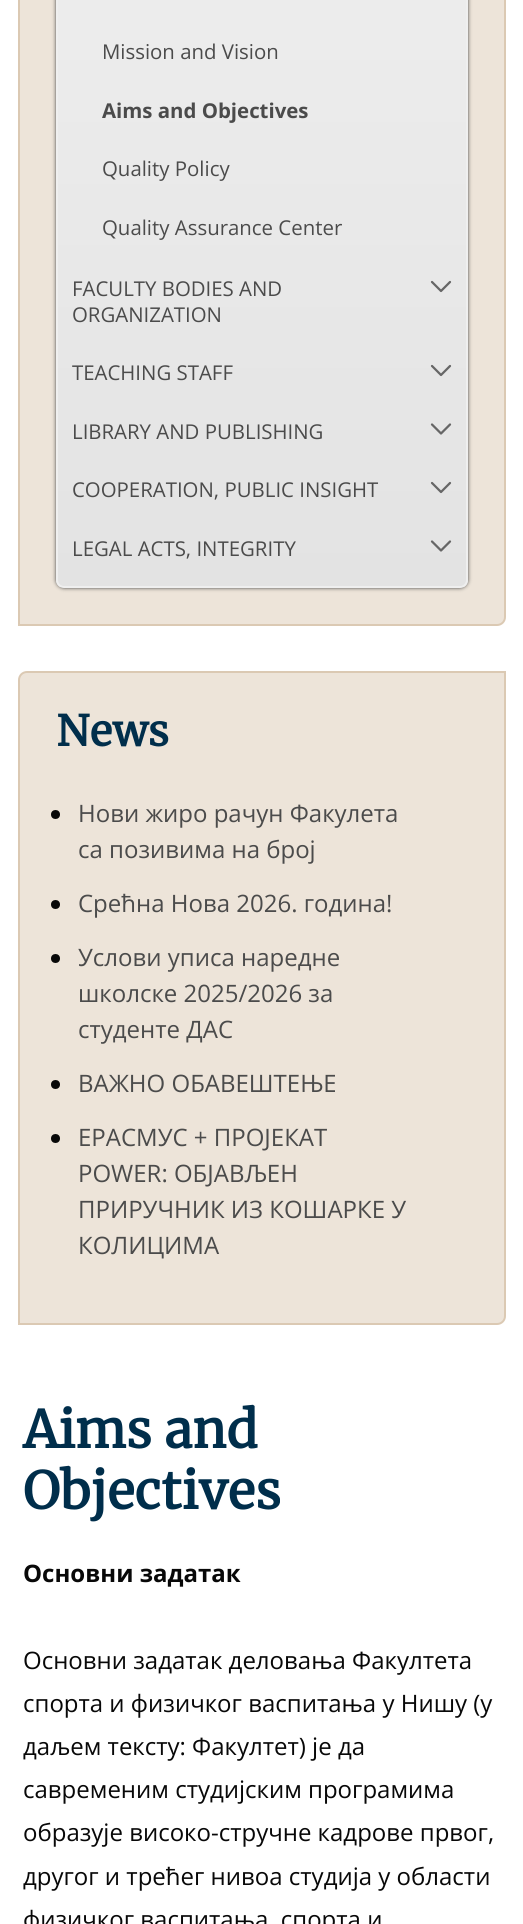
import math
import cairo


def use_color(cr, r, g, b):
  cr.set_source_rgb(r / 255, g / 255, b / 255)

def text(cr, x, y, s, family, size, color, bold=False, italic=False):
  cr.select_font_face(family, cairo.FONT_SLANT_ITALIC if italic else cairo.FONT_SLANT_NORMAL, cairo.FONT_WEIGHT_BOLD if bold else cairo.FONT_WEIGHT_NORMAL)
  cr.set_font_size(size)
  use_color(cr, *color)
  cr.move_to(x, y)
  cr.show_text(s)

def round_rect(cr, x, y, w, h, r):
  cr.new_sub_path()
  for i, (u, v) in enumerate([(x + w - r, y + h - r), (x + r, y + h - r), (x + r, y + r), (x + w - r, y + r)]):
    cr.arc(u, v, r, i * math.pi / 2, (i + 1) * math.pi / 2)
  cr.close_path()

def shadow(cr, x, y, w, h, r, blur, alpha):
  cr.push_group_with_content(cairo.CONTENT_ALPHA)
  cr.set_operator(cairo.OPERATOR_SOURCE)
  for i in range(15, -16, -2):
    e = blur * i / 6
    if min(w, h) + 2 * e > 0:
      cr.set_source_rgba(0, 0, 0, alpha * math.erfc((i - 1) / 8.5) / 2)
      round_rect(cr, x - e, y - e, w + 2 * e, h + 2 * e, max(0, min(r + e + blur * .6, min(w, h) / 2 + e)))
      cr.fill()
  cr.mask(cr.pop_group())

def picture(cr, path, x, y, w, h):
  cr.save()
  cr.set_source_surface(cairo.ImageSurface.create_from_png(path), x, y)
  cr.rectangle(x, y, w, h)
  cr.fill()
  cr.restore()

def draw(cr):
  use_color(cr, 255, 255, 255)
  cr.paint()
  use_color(cr, 237, 228, 217)
  cr.new_path()
  cr.move_to(27, -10)
  cr.line_to(505, -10)
  cr.line_to(505, 617)
  cr.curve_to(505, 621.5, 501.5, 625, 497, 625)
  cr.line_to(19, 625)
  cr.line_to(19, -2)
  cr.curve_to(19, -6.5, 22.5, -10, 27, -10)
  cr.close_path()
  cr.fill_preserve()
  use_color(cr, 219, 201, 179)
  cr.stroke()
  use_color(cr, 68, 68, 68)
  shadow(cr, 56, -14, 412, 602, 8, 2, 1)
  cr.save()
  round_rect(cr, 56, -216, 412, 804, 8)
  cr.clip()
  gradient = cairo.LinearGradient(262, -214, 262, 587)
  gradient.add_color_stop_rgba(0, 0.941, 0.941, 0.941, 1)
  gradient.add_color_stop_rgba(1, 0.89, 0.89, 0.89, 1)
  cr.set_source(gradient)
  cr.rectangle(56, 0, 412, 587)
  cr.fill()
  cr.restore()
  round_rect(cr, 57, -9, 410, 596, 7)
  use_color(cr, 239, 239, 239)
  cr.stroke()
  picture(cr, "img_01.png", 430, 280, 22, 13)
  picture(cr, "img_02.png", 430, 364, 22, 13)
  picture(cr, "img_03.png", 430, 423, 22, 12)
  picture(cr, "img_04.png", 430, 481, 22, 13)
  picture(cr, "img_05.png", 430, 540, 22, 12)
  use_color(cr, 237, 228, 217)
  cr.new_path()
  cr.move_to(27, 672)
  cr.line_to(505, 672)
  cr.line_to(505, 1316)
  cr.curve_to(505, 1320.5, 501.5, 1324, 497, 1324)
  cr.line_to(19, 1324)
  cr.line_to(19, 680)
  cr.curve_to(19, 675.5, 22.5, 672, 27, 672)
  cr.close_path()
  cr.fill_preserve()
  use_color(cr, 219, 201, 179)
  cr.stroke()
  use_color(cr, 8, 8, 8)
  cr.arc(55.5, 814.5, 4.5, 0, 2 * math.pi)
  cr.fill()
  cr.arc(55.5, 904.5, 4.5, 0, 2 * math.pi)
  cr.fill()
  cr.arc(55.5, 958.5, 4.5, 0, 2 * math.pi)
  cr.fill()
  cr.arc(55.5, 1084.5, 4.5, 0, 2 * math.pi)
  cr.fill()
  cr.arc(55.5, 1138.5, 4.5, 0, 2 * math.pi)
  cr.fill()
  text(cr, 102, 59, "Mission and Vision", "Open Sans", 20.4, (75, 75, 75))
  text(cr, 102, 118, "Aims and Objectives", "Open Sans", 20.4, (75, 75, 75), bold=True)
  text(cr, 102, 176, "Quality Policy", "Open Sans", 20.4, (75, 75, 75))
  text(cr, 102, 235, "Quality Assurance Center", "Open Sans", 20.4, (75, 75, 75))
  text(cr, 72, 296, "FACULTY BODIES AND", "Open Sans", 20.4, (75, 75, 75))
  text(cr, 72, 322, "ORGANIZATION", "Open Sans", 20.4, (75, 75, 75))
  text(cr, 72, 380, "TEACHING STAFF", "Open Sans", 20.4, (75, 75, 75))
  text(cr, 72, 439, "LIBRARY AND PUBLISHING", "Open Sans", 20.4, (75, 75, 75))
  text(cr, 72, 497, "COOPERATION, PUBLIC INSIGHT", "Open Sans", 20.4, (75, 75, 75))
  text(cr, 72, 556, "LEGAL ACTS, INTEGRITY", "Open Sans", 20.4, (75, 75, 75))
  text(cr, 56, 746, "News", "Merriweather", 42, (0, 46, 75), bold=True)
  text(cr, 78, 822, "Нови жиро рачун Факулета", "Open Sans", 24, (75, 75, 75))
  text(cr, 78, 858, "са позивима на број", "Open Sans", 24, (75, 75, 75))
  text(cr, 78, 912, "Срећна Нова 2026. година!", "Open Sans", 24, (75, 75, 75))
  text(cr, 78, 966, "Услови уписа наредне", "Open Sans", 24, (75, 75, 75))
  text(cr, 78, 1002, "школске 2025/2026 за", "Open Sans", 24, (75, 75, 75))
  text(cr, 78, 1038, "студенте ДАС", "Open Sans", 24, (75, 75, 75))
  text(cr, 78, 1092, "ВАЖНО ОБАВЕШТЕЊЕ", "Open Sans", 24, (75, 75, 75))
  text(cr, 78, 1146, "ЕРАСМУС + ПРОЈЕКАТ", "Open Sans", 24, (75, 75, 75))
  text(cr, 78, 1182, "POWER: ОБЈАВЉЕН", "Open Sans", 24, (75, 75, 75))
  text(cr, 78, 1218, "ПРИРУЧНИК ИЗ КОШАРКЕ У", "Open Sans", 24, (75, 75, 75))
  text(cr, 78, 1254, "КОЛИЦИМА", "Open Sans", 24, (75, 75, 75))
  text(cr, 23, 1448, "Aims and", "Merriweather", 51, (0, 46, 75), bold=True)
  text(cr, 23, 1509, "Objectives", "Merriweather", 51, (0, 46, 75), bold=True)
  text(cr, 23, 1582, "Основни задатак", "Open Sans", 24, (8, 8, 8), bold=True)
  text(cr, 23, 1669, "Основни задатак деловања Факултета", "Open Sans", 24, (8, 8, 8))
  text(cr, 23, 1712, "спорта и физичког васпитања у Нишу (у", "Open Sans", 24, (8, 8, 8))
  text(cr, 23, 1755, "даљем тексту: Факултет) je да", "Open Sans", 24, (8, 8, 8))
  text(cr, 23, 1798, "савременим студијским програмима", "Open Sans", 24, (8, 8, 8))
  text(cr, 23, 1841, "образује високо-стручне кадрове првог,", "Open Sans", 24, (8, 8, 8))
  text(cr, 23, 1885, "другог и трећег нивоа студија у области", "Open Sans", 24, (8, 8, 8))
  text(cr, 23, 1928, "физичког васпитања, спорта и", "Open Sans", 24, (8, 8, 8))


surface = cairo.ImageSurface(cairo.FORMAT_RGB24, 523, 1924)
cr = cairo.Context(surface)
options = cairo.FontOptions()
options.set_hint_metrics(cairo.HINT_METRICS_OFF)
options.set_hint_style(cairo.HINT_STYLE_NONE)
cr.set_font_options(options)
cr.set_miter_limit(4)
draw(cr)
surface.write_to_png("out.png")
